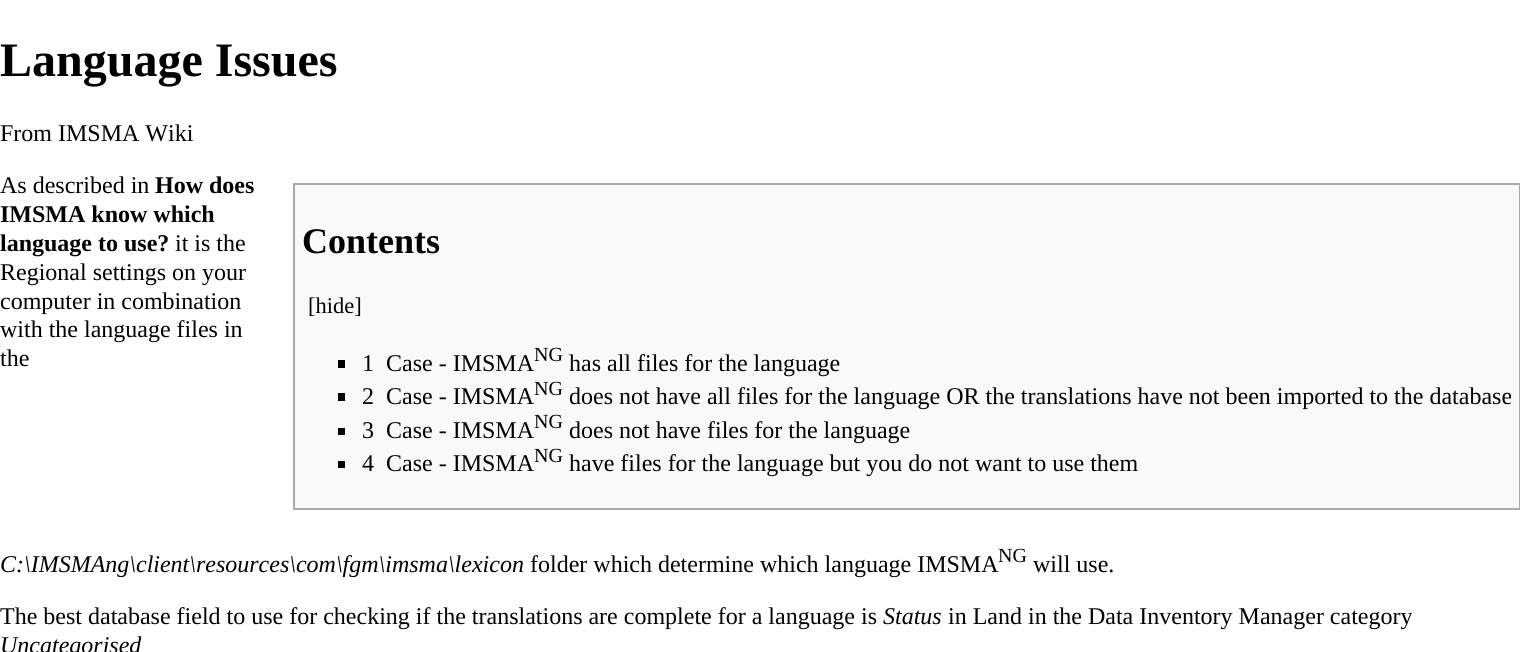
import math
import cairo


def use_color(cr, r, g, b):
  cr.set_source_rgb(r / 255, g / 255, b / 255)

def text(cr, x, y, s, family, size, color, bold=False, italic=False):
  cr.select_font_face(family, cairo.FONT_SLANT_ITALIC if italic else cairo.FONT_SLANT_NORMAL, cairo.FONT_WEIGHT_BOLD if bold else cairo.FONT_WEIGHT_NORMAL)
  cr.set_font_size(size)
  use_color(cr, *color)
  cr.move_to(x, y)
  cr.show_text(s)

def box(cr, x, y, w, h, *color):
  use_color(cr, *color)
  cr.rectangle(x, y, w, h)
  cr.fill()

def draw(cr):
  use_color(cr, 255, 255, 255)
  cr.paint()
  use_color(cr, 249, 249, 249)
  cr.rectangle(294, 184, 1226, 325)
  cr.fill_preserve()
  use_color(cr, 170, 170, 170)
  cr.stroke()
  box(cr, 338, 360, 7, 8, 0, 0, 0)
  box(cr, 338, 393, 7, 8, 0, 0, 0)
  box(cr, 338, 428, 7, 7, 0, 0, 0)
  box(cr, 338, 461, 7, 7, 0, 0, 0)
  text(cr, 0, 76, "Language Issues", "Liberation Serif", 48, (0, 0, 0), bold=True)
  text(cr, 0, 141, "From IMSMA Wiki", "Liberation Serif", 24, (0, 0, 0))
  text(cr, 0, 193, "As described in", "Liberation Serif", 24, (0, 0, 0))
  text(cr, 155, 193, "How does", "Liberation Serif", 24, (0, 0, 0), bold=True)
  text(cr, 0, 222, "IMSMA know which", "Liberation Serif", 24, (0, 0, 0), bold=True)
  text(cr, 0, 251, "language to use?", "Liberation Serif", 24, (0, 0, 0), bold=True)
  text(cr, 175, 251, "it is the", "Liberation Serif", 24, (0, 0, 0))
  text(cr, 0, 280, "Regional settings on your", "Liberation Serif", 24, (0, 0, 0))
  text(cr, 0, 309, "computer in combination", "Liberation Serif", 24, (0, 0, 0))
  text(cr, 0, 337, "with the language files in", "Liberation Serif", 24, (0, 0, 0))
  text(cr, 0, 366, "the", "Liberation Serif", 24, (0, 0, 0))
  text(cr, 0, 572, "C:\\IMSMAng\\client\\resources\\com\\fgm\\imsma\\lexicon", "Liberation Serif", 24, (0, 0, 0), italic=True)
  text(cr, 530, 572, "folder which determine which language IMSMA", "Liberation Serif", 24, (0, 0, 0))
  text(cr, 998, 562, "NG", "Liberation Serif", 20, (0, 0, 0))
  text(cr, 1033, 572, "will use.", "Liberation Serif", 24, (0, 0, 0))
  text(cr, 302, 253, "Contents", "Liberation Serif", 36, (0, 0, 0), bold=True)
  text(cr, 308, 313, "[hide]", "Liberation Serif", 22.5, (0, 0, 0))
  text(cr, 362, 371, "1", "Liberation Serif", 24, (0, 0, 0))
  text(cr, 386, 371, "Case - IMSMA", "Liberation Serif", 24, (0, 0, 0))
  text(cr, 534, 361, "NG", "Liberation Serif", 20, (0, 0, 0))
  text(cr, 569, 371, "has all files for the language", "Liberation Serif", 24, (0, 0, 0))
  text(cr, 362, 404, "2", "Liberation Serif", 24, (0, 0, 0))
  text(cr, 386, 404, "Case - IMSMA", "Liberation Serif", 24, (0, 0, 0))
  text(cr, 534, 395, "NG", "Liberation Serif", 20, (0, 0, 0))
  text(cr, 569, 404, "does not have all files for the language OR the translations have not been imported to the database", "Liberation Serif", 24, (0, 0, 0))
  text(cr, 362, 438, "3", "Liberation Serif", 24, (0, 0, 0))
  text(cr, 386, 438, "Case - IMSMA", "Liberation Serif", 24, (0, 0, 0))
  text(cr, 534, 428, "NG", "Liberation Serif", 20, (0, 0, 0))
  text(cr, 569, 438, "does not have files for the language", "Liberation Serif", 24, (0, 0, 0))
  text(cr, 362, 471, "4", "Liberation Serif", 24, (0, 0, 0))
  text(cr, 386, 471, "Case - IMSMA", "Liberation Serif", 24, (0, 0, 0))
  text(cr, 534, 462, "NG", "Liberation Serif", 20, (0, 0, 0))
  text(cr, 569, 471, "have files for the language but you do not want to use them", "Liberation Serif", 24, (0, 0, 0))
  text(cr, 0, 624, "The best database field to use for checking if the translations are complete for a language is", "Liberation Serif", 24, (0, 0, 0))
  text(cr, 883, 624, "Status", "Liberation Serif", 24, (0, 0, 0), italic=True)
  text(cr, 948, 624, "in Land in the Data Inventory Manager category", "Liberation Serif", 24, (0, 0, 0))
  text(cr, 0, 653, "Uncategorised", "Liberation Serif", 24, (0, 0, 0), italic=True)


surface = cairo.ImageSurface(cairo.FORMAT_RGB24, 1520, 652)
cr = cairo.Context(surface)
options = cairo.FontOptions()
options.set_hint_metrics(cairo.HINT_METRICS_OFF)
options.set_hint_style(cairo.HINT_STYLE_NONE)
cr.set_font_options(options)
cr.set_miter_limit(4)
draw(cr)
surface.write_to_png("out.png")
